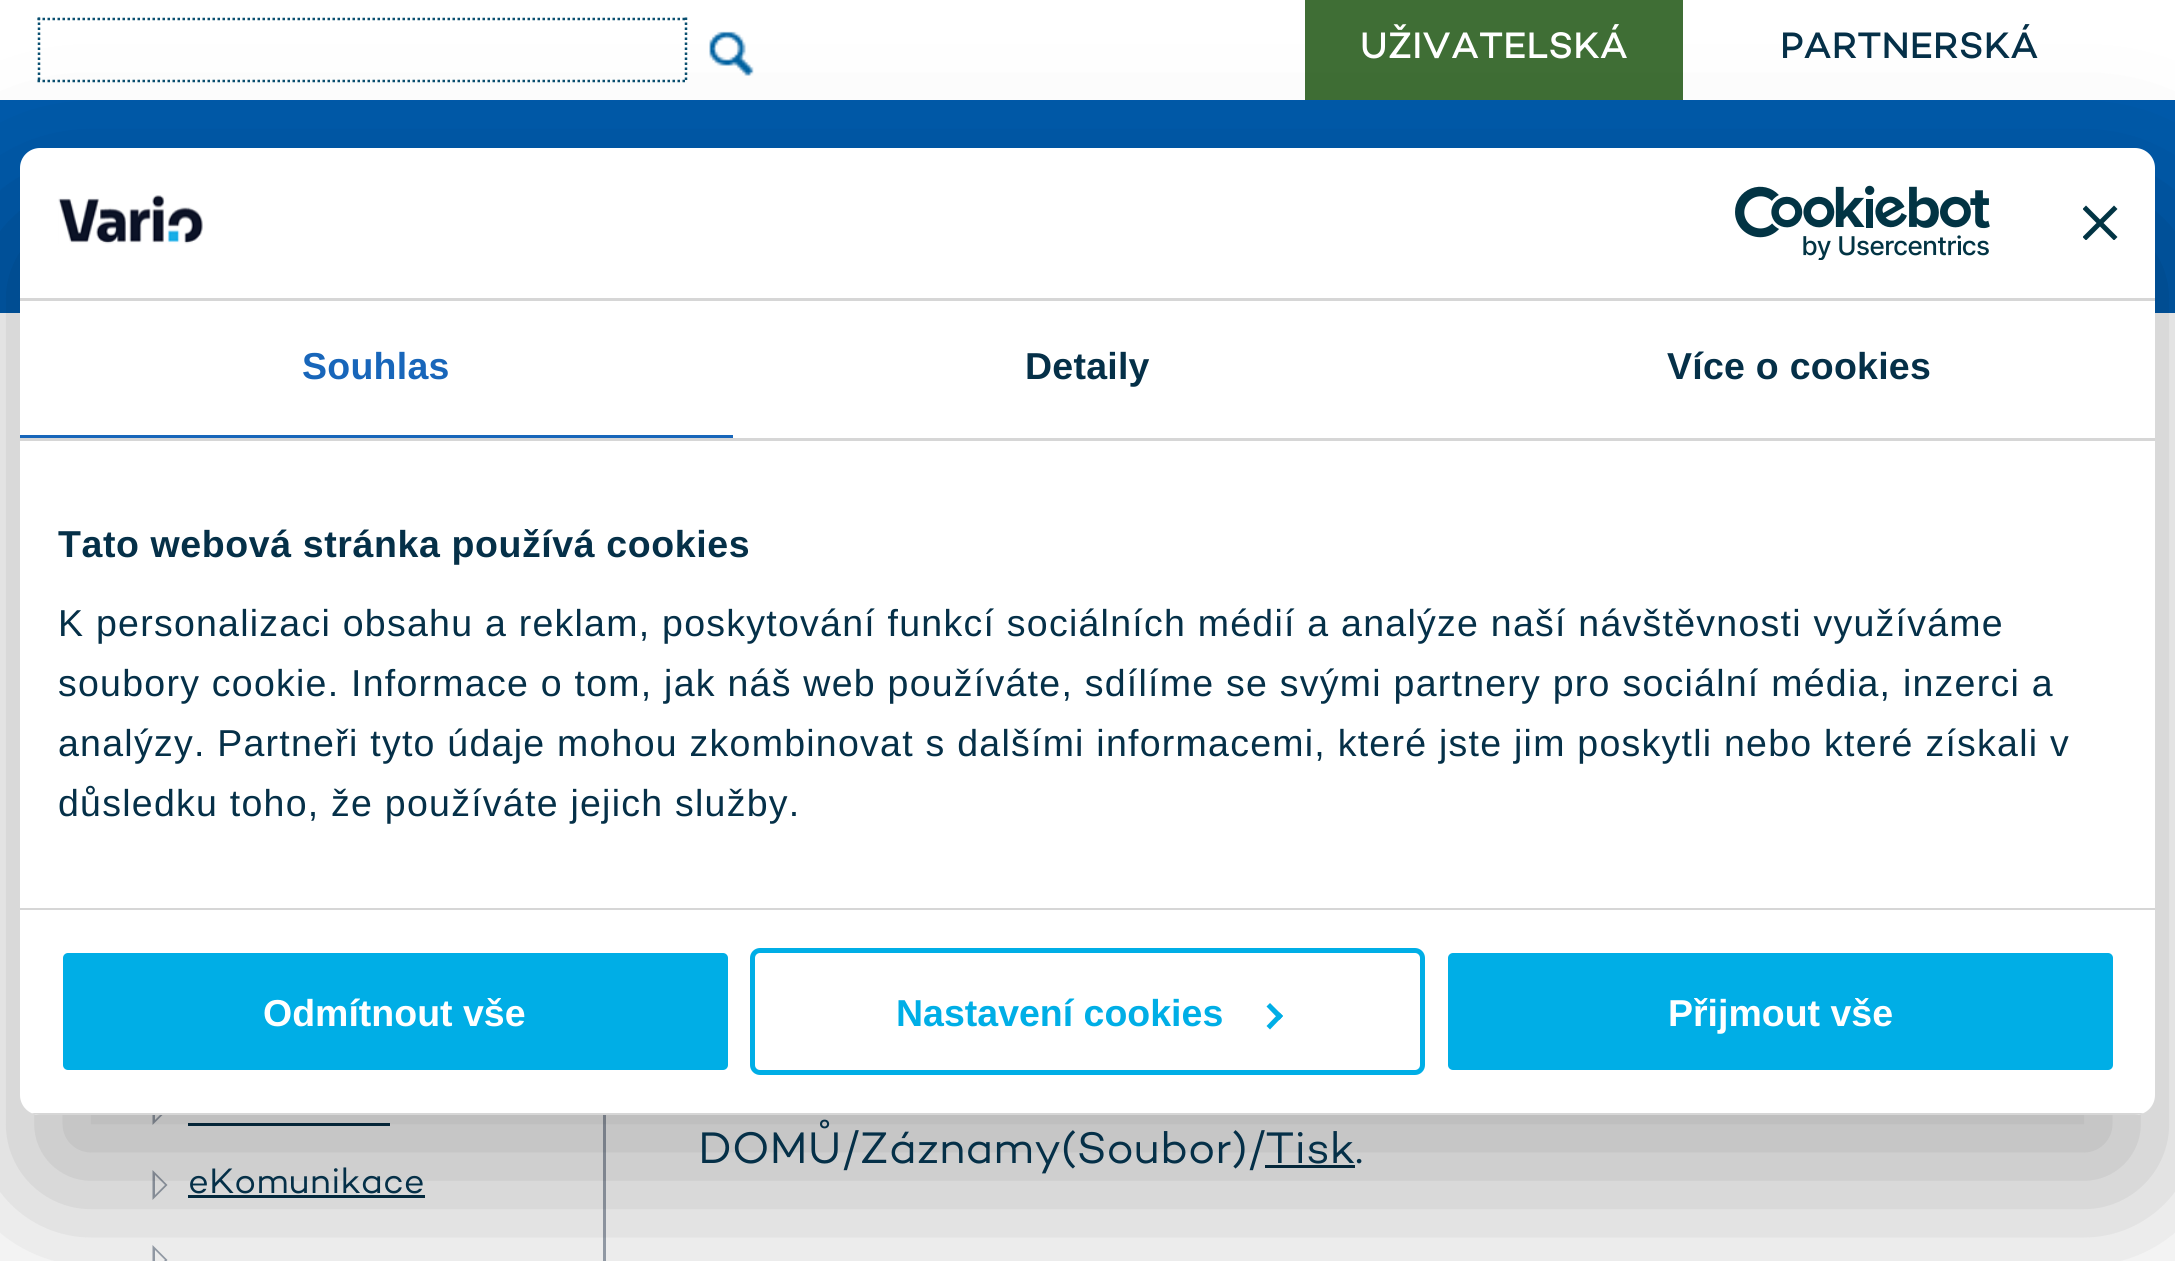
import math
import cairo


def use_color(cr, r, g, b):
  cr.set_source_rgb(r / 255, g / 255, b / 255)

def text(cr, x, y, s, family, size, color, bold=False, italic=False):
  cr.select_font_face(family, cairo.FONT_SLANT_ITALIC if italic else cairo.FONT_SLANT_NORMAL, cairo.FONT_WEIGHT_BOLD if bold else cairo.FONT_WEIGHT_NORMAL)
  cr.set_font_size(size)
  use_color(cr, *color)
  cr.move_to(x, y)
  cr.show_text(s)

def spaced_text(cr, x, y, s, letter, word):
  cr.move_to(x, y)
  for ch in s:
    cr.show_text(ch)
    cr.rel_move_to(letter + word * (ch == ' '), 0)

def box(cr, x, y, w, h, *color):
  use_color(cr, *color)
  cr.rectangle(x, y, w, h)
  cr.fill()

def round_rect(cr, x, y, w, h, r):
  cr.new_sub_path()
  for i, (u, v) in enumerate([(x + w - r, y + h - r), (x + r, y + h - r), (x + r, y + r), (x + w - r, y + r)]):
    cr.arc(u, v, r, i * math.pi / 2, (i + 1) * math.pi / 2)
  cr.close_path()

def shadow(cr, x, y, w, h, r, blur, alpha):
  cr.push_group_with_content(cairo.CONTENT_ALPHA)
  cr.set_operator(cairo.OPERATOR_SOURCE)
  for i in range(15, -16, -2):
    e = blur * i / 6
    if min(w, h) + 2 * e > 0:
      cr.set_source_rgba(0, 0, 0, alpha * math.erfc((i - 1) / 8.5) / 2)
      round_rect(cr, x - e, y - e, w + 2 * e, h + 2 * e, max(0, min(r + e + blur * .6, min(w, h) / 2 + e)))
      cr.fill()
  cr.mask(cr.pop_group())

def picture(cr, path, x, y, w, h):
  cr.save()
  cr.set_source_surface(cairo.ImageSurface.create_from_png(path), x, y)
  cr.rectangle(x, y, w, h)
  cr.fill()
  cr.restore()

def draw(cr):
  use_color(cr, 255, 255, 255)
  cr.paint()
  cr.new_path()
  cr.move_to(37.5, 19)
  cr.line_to(687.5, 19)
  use_color(cr, 10, 79, 112)
  cr.set_line_width(2.5)
  cr.set_dash([2.5, 2.5])
  cr.stroke()
  cr.new_path()
  cr.move_to(686, 17.5)
  cr.line_to(686, 82.5)
  cr.stroke()
  cr.new_path()
  cr.move_to(37.5, 81)
  cr.line_to(687.5, 81)
  cr.stroke()
  cr.new_path()
  cr.move_to(39, 17.5)
  cr.line_to(39, 82.5)
  cr.stroke()
  picture(cr, "img_01.png", 709, 31, 45, 45)
  box(cr, 1305, 0, 378, 100, 63, 110, 53)
  box(cr, 0, 100, 2175, 213, 0, 90, 171)
  box(cr, 603, 1115, 3, 146, 156, 164, 176)
  box(cr, 1265, 1165, 90, 3, 5, 48, 72)
  use_color(cr, 156, 164, 176)
  cr.new_path()
  cr.move_to(152.5, 1125)
  cr.line_to(152.5, 1095)
  cr.line_to(167.5, 1110)
  cr.close_path()
  cr.fill()
  use_color(cr, 255, 255, 255)
  cr.new_path()
  cr.move_to(155, 1120)
  cr.line_to(155, 1100)
  cr.line_to(165, 1110)
  cr.close_path()
  cr.fill()
  box(cr, 188, 1123, 202, 3, 5, 48, 72)
  use_color(cr, 156, 164, 176)
  cr.new_path()
  cr.move_to(152.5, 1200)
  cr.line_to(152.5, 1170)
  cr.line_to(167.5, 1185)
  cr.close_path()
  cr.fill()
  box(cr, 188, 1195, 237, 3, 5, 48, 72)
  use_color(cr, 255, 255, 255)
  cr.new_path()
  cr.move_to(155, 1195)
  cr.line_to(155, 1175)
  cr.line_to(165, 1185)
  cr.close_path()
  cr.fill()
  use_color(cr, 156, 164, 176)
  cr.new_path()
  cr.move_to(152.5, 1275)
  cr.line_to(152.5, 1245)
  cr.line_to(167.5, 1260)
  cr.close_path()
  cr.fill()
  use_color(cr, 255, 255, 255)
  cr.new_path()
  cr.move_to(155, 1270)
  cr.line_to(155, 1250)
  cr.line_to(165, 1260)
  cr.close_path()
  cr.fill()
  use_color(cr, 0, 0, 0)
  shadow(cr, 20, 228, 2135, 967, 20, 85, 0.3)
  use_color(cr, 255, 255, 255)
  round_rect(cr, 20, 148, 2135, 967, 20)
  cr.fill()
  box(cr, 20, 298, 2135, 3, 214, 214, 214)
  picture(cr, "img_02.png", 58, 195, 145, 49)
  picture(cr, "img_03.png", 1735, 185, 255, 75)
  cr.save()
  cr.rectangle(2083, 205, 35, 35)
  cr.clip()
  use_color(cr, 2, 52, 68)
  cr.new_path()
  cr.move_to(2117.5, 209)
  cr.line_to(2114, 205.5)
  cr.line_to(2100, 219.5)
  cr.line_to(2086, 205.5)
  cr.line_to(2082.5, 209)
  cr.line_to(2096.5, 223)
  cr.line_to(2082.5, 237)
  cr.line_to(2086, 240.5)
  cr.line_to(2100, 226.5)
  cr.line_to(2114, 240.5)
  cr.line_to(2117.5, 237)
  cr.line_to(2103.5, 223)
  cr.close_path()
  cr.fill()
  cr.restore()
  box(cr, 20, 438, 2135, 3, 214, 214, 214)
  box(cr, 20, 435, 713, 3, 24, 102, 186)
  box(cr, 20, 908, 2135, 2, 214, 214, 214)
  cr.save()
  round_rect(cr, 20, 148, 2135, 967, 20)
  cr.clip()
  box(cr, 31, 1113, 2113, 2, 214, 214, 214)
  cr.restore()
  use_color(cr, 0, 174, 230)
  round_rect(cr, 60.5, 950.5, 670, 122, 7.5)
  cr.fill_preserve()
  use_color(cr, 255, 255, 255)
  cr.set_line_width(5)
  cr.set_dash([])
  cr.stroke()
  round_rect(cr, 752.5, 950.5, 670, 122, 7.5)
  use_color(cr, 0, 174, 230)
  cr.stroke()
  cr.new_path()
  cr.move_to(1270, 1003)
  cr.line_to(1283, 1016)
  cr.line_to(1279.5, 1020)
  cr.line_to(1266.5, 1006.5)
  cr.close_path()
  cr.fill()
  cr.new_path()
  cr.move_to(1279.5, 1012.5)
  cr.line_to(1283, 1016)
  cr.line_to(1270, 1029.5)
  cr.line_to(1266.5, 1026)
  cr.close_path()
  cr.fill()
  round_rect(cr, 1445.5, 950.5, 670, 122, 7.5)
  cr.fill_preserve()
  use_color(cr, 255, 255, 255)
  cr.stroke()
  text(cr, 1360, 58, "UŽIVATELSKÁ", "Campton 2", 37.5, (255, 255, 255))
  text(cr, 1780, 58, "PARTNERSKÁ", "Campton 2", 37.5, (5, 48, 72))
  cr.select_font_face("Liberation Sans", cairo.FONT_SLANT_NORMAL, cairo.FONT_WEIGHT_BOLD)
  use_color(cr, 24, 102, 186)
  spaced_text(cr, 302, 379, "Souhlas", 0.25, 0)
  use_color(cr, 5, 48, 72)
  spaced_text(cr, 1025, 379, "Detaily", 0.25, 0)
  spaced_text(cr, 1667, 379, "Více o cookies", 0.25, 0)
  spaced_text(cr, 58, 557, "Tato webová stránka používá cookies", 0.6, 0)
  cr.select_font_face("Liberation Sans")
  spaced_text(cr, 58, 636, "K personalizaci obsahu a reklam, poskytování funkcí sociálních médií a analýze naší návštěvnosti využíváme", 1.25, 0)
  spaced_text(cr, 58, 696, "soubory cookie. Informace o tom, jak náš web používáte, sdílíme se svými partnery pro sociální média, inzerci a", 1.25, 0)
  spaced_text(cr, 58, 756, "analýzy. Partneři tyto údaje mohou zkombinovat s dalšími informacemi, které jste jim poskytli nebo které získali v", 1.25, 0)
  spaced_text(cr, 58, 816, "důsledku toho, že používáte jejich služby.", 1.25, 0)
  text(cr, 263, 1026, "Odmítnout vše", "Liberation Sans", 37.5, (255, 255, 255), bold=True)
  text(cr, 896, 1026, "Nastavení cookies", "Liberation Sans", 37.5, (0, 174, 230), bold=True)
  text(cr, 1668, 1026, "Přijmout vše", "Liberation Sans", 37.5, (255, 255, 255), bold=True)
  text(cr, 698, 1163, "DOMŮ/Záznamy(Soubor)/Tisk.", "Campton", 45, (5, 48, 72))
  text(cr, 188, 1193, "eKomunikace", "Campton", 36, (5, 48, 72))


surface = cairo.ImageSurface(cairo.FORMAT_RGB24, 2175, 1261)
cr = cairo.Context(surface)
options = cairo.FontOptions()
options.set_hint_metrics(cairo.HINT_METRICS_OFF)
options.set_hint_style(cairo.HINT_STYLE_NONE)
cr.set_font_options(options)
cr.set_miter_limit(4)
draw(cr)
surface.write_to_png("out.png")
